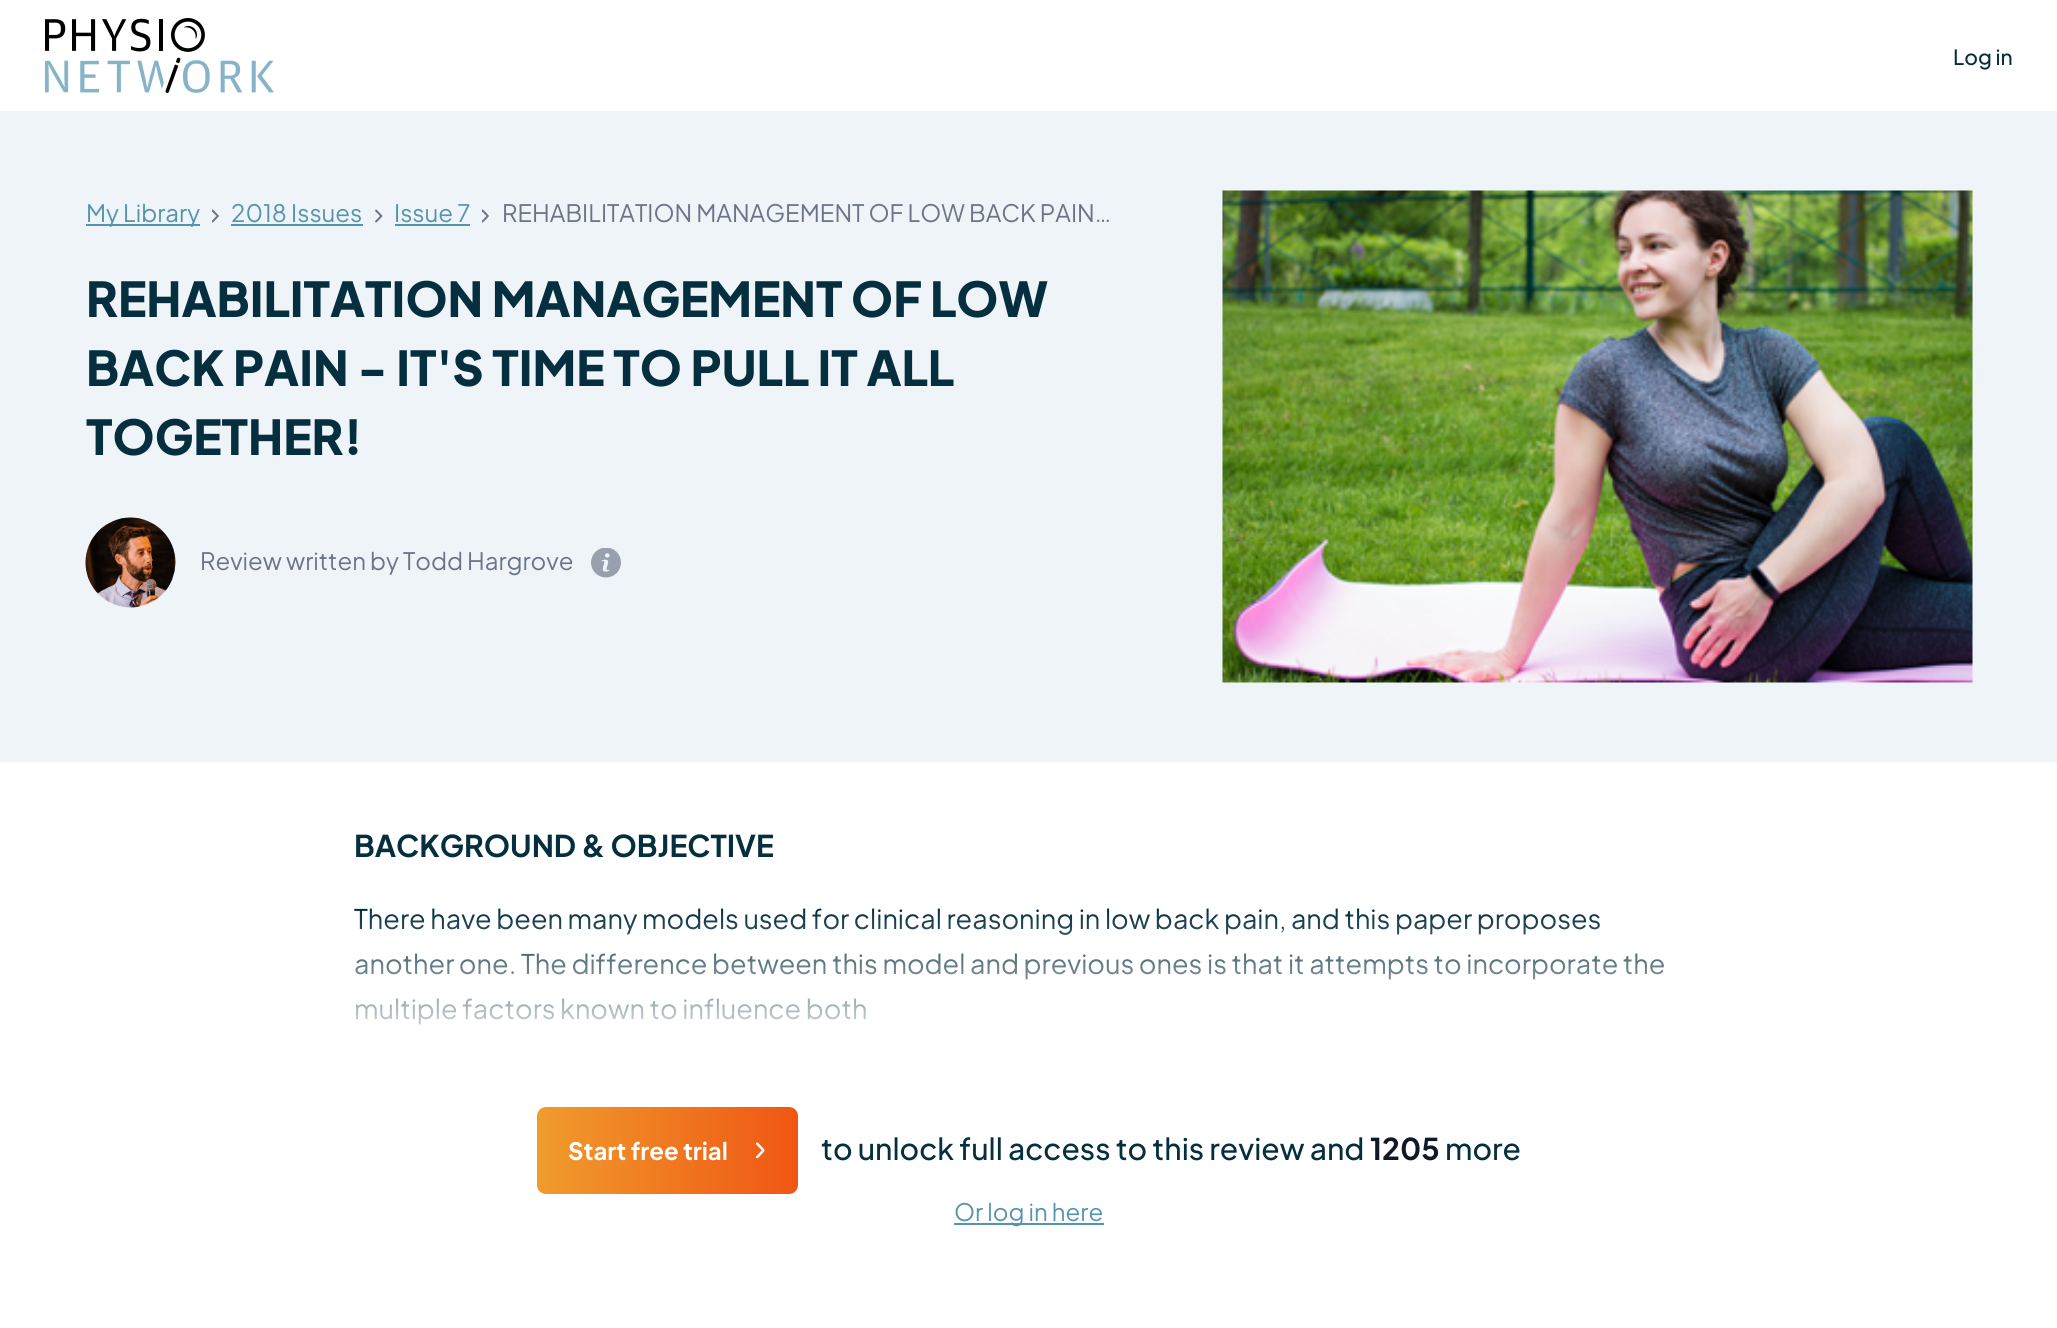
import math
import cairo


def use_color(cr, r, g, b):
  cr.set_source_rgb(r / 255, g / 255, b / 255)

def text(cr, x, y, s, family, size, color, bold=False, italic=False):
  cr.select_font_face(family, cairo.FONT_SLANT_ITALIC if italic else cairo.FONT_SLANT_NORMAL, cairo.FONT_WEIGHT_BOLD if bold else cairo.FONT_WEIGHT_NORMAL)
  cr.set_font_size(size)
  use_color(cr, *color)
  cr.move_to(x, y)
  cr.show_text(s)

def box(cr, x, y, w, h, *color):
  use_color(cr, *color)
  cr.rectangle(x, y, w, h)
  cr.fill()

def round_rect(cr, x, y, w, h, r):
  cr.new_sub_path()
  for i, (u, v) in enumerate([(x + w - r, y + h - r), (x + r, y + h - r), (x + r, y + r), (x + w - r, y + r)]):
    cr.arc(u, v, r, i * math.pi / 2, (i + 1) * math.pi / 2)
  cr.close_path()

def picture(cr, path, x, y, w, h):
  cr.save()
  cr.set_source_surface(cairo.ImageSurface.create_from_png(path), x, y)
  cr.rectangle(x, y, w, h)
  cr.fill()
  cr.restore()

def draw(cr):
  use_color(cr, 255, 255, 255)
  cr.paint()
  picture(cr, "img_01.png", 45, 18, 229, 75)
  box(cr, 0, 111, 2057, 651, 238, 244, 247)
  box(cr, 86, 224, 114, 2, 86, 148, 174)
  picture(cr, "img_02.png", 212, 209, 7, 14)
  box(cr, 231, 224, 132, 2, 86, 148, 174)
  picture(cr, "img_03.png", 375, 209, 8, 14)
  box(cr, 395, 224, 75, 2, 86, 148, 174)
  picture(cr, "img_02.png", 482, 209, 7, 14)
  picture(cr, "img_04.png", 85, 517, 91, 91)
  picture(cr, "img_05.png", 591, 548, 30, 30)
  picture(cr, "img_06.png", 1222, 190, 751, 493)
  gradient = cairo.LinearGradient(537, 1151, 798, 1151)
  gradient.add_color_stop_rgba(0, 0.941, 0.612, 0.176, 1)
  gradient.add_color_stop_rgba(1, 0.941, 0.337, 0.075, 1)
  cr.set_source(gradient)
  round_rect(cr, 537, 1107, 261, 87, 9)
  cr.fill()
  picture(cr, "img_07.png", 755, 1142, 10, 17)
  box(cr, 954, 1223, 150, 2, 86, 148, 174)
  text(cr, 1953, 65, "Log in", "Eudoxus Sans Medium", 21, (5, 46, 63))
  text(cr, 86, 222, "My Library", "Eudoxus Sans", 24, (86, 148, 174))
  text(cr, 231, 222, "2018 Issues", "Eudoxus Sans", 24, (86, 148, 174))
  text(cr, 394, 222, "Issue 7", "Eudoxus Sans", 24, (86, 148, 174))
  text(cr, 502, 222, "REHABILITATION MANAGEMENT OF LOW BACK PAIN…", "Eudoxus Sans", 24, (107, 117, 135))
  text(cr, 86, 317, "REHABILITATION MANAGEMENT OF LOW", "Eudoxus Sans ExtraBold", 48, (5, 46, 63))
  text(cr, 86, 386, "BACK PAIN - IT'S TIME TO PULL IT ALL", "Eudoxus Sans ExtraBold", 48, (5, 46, 63))
  text(cr, 86, 455, "TOGETHER!", "Eudoxus Sans ExtraBold", 48, (5, 46, 63))
  text(cr, 200, 570, "Review written by Todd Hargrove", "Eudoxus Sans", 24, (107, 117, 135))
  text(cr, 354, 857, "BACKGROUND & OBJECTIVE", "Eudoxus Sans", 30, (5, 46, 63), bold=True)
  text(cr, 354, 929, "There have been many models used for clinical reasoning in low back pain, and this paper proposes", "Eudoxus Sans", 27, (5, 46, 63))
  text(cr, 354, 974, "another one. The difference between this model and previous ones is that it attempts to incorporate the", "Eudoxus Sans", 27, (5, 46, 63))
  text(cr, 354, 1019, "multiple factors known to influence both", "Eudoxus Sans", 27, (5, 46, 63))
  gradient = cairo.LinearGradient(1029, 909, 1029, 1059)
  gradient.add_color_stop_rgba(0, 1, 1, 1, 0)
  gradient.add_color_stop_rgba(1, 1, 1, 1, 1)
  cr.set_source(gradient)
  cr.rectangle(355, 912, 1309, 113)
  cr.fill()
  text(cr, 568, 1160, "Start free trial", "Eudoxus Sans", 24, (255, 255, 255), bold=True)
  text(cr, 821, 1160, "to unlock full access to this review and", "Eudoxus Sans Medium", 30, (5, 46, 63))
  text(cr, 1370, 1160, "1205", "Eudoxus Sans", 30, (17, 24, 39), bold=True)
  text(cr, 1445, 1160, "more", "Eudoxus Sans Medium", 30, (5, 46, 63))
  text(cr, 954, 1221, "Or log in here", "Eudoxus Sans", 24, (86, 148, 174))


surface = cairo.ImageSurface(cairo.FORMAT_RGB24, 2057, 1328)
cr = cairo.Context(surface)
options = cairo.FontOptions()
options.set_hint_metrics(cairo.HINT_METRICS_OFF)
options.set_hint_style(cairo.HINT_STYLE_NONE)
cr.set_font_options(options)
cr.set_miter_limit(4)
draw(cr)
surface.write_to_png("out.png")
